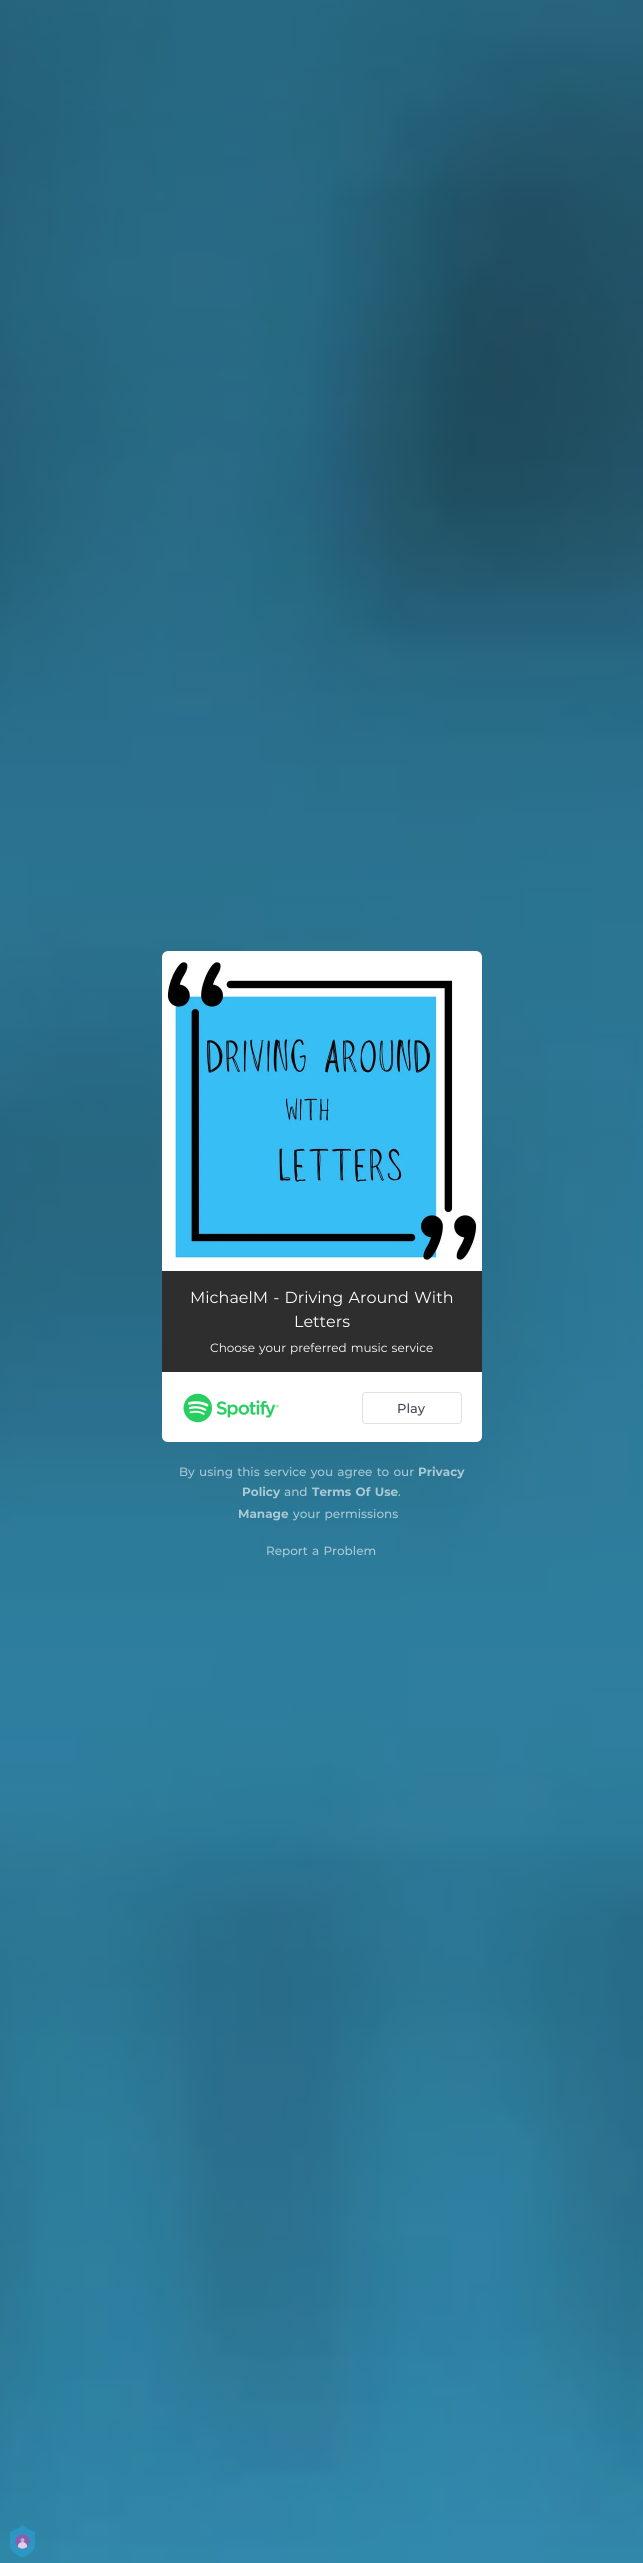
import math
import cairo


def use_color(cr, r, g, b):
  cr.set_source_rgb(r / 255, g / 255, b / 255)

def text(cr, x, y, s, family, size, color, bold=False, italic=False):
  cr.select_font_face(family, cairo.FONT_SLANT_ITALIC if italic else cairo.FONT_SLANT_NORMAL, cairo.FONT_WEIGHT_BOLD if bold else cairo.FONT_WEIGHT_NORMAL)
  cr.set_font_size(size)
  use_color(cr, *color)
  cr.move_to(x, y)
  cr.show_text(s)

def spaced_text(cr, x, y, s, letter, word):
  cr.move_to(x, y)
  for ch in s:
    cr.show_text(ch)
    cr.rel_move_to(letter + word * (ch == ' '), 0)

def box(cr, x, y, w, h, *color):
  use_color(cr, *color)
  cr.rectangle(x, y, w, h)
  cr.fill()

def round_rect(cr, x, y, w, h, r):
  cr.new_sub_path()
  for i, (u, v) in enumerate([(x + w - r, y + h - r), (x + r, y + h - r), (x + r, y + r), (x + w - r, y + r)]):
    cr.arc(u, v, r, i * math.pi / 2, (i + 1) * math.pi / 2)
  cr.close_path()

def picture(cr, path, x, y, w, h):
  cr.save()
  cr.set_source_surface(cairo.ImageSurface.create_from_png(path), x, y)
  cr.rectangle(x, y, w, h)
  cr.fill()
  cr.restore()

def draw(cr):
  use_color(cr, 255, 255, 255)
  cr.paint()
  picture(cr, "img_01.png", 0, 0, 643, 2563)
  picture(cr, "img_02.png", 162, 951, 320, 320)
  box(cr, 162, 1271, 320, 101, 46, 46, 46)
  use_color(cr, 255, 255, 255)
  cr.new_path()
  cr.move_to(162, 1372)
  cr.line_to(482, 1372)
  cr.line_to(482, 1436)
  cr.curve_to(482, 1439.5, 479.5, 1442, 476, 1442)
  cr.line_to(168, 1442)
  cr.curve_to(164.5, 1442, 162, 1439.5, 162, 1436)
  cr.close_path()
  cr.fill()
  picture(cr, "img_03.png", 183, 1393, 96, 30)
  round_rect(cr, 362.5, 1392.5, 99, 31, 3.5)
  use_color(cr, 225, 225, 228)
  cr.set_line_width(1)
  cr.stroke()
  picture(cr, "img_04.png", 10, 2525, 25, 33)
  cr.select_font_face("Montserrat")
  cr.set_font_size(16)
  use_color(cr, 255, 255, 255)
  spaced_text(cr, 190, 1303, "MichaelM - Driving Around With", 0, 1)
  text(cr, 294, 1327, "Letters", "Montserrat", 16, (255, 255, 255))
  cr.set_font_size(12)
  spaced_text(cr, 210, 1352, "Choose your preferred music service", 0, 1)
  text(cr, 397, 1413, "Play", "Montserrat Medium", 13, (65, 71, 84))
  cr.set_font_size(12)
  use_color(cr, 170, 201, 212)
  spaced_text(cr, 179, 1476, "By using this service you agree to our", 0, 1)
  text(cr, 418, 1476, "Privacy", "Montserrat", 12, (170, 201, 212), bold=True)
  text(cr, 242, 1496, "Policy", "Montserrat", 12, (170, 201, 212), bold=True)
  text(cr, 284, 1496, "and", "Montserrat Medium", 12, (170, 201, 212))
  cr.select_font_face("Montserrat", cairo.FONT_SLANT_NORMAL, cairo.FONT_WEIGHT_BOLD)
  spaced_text(cr, 312, 1496, "Terms Of Use", 0, 1)
  text(cr, 398, 1496, ".", "Montserrat Medium", 12, (170, 201, 212))
  text(cr, 238, 1518, "Manage", "Montserrat", 12, (170, 201, 212), bold=True)
  cr.select_font_face("Montserrat Medium")
  spaced_text(cr, 293, 1518, "your permissions", 0, 1)
  spaced_text(cr, 266, 1555, "Report a Problem", 0, 1)


surface = cairo.ImageSurface(cairo.FORMAT_RGB24, 643, 2563)
cr = cairo.Context(surface)
options = cairo.FontOptions()
options.set_hint_metrics(cairo.HINT_METRICS_OFF)
options.set_hint_style(cairo.HINT_STYLE_NONE)
cr.set_font_options(options)
cr.set_miter_limit(4)
draw(cr)
surface.write_to_png("out.png")
